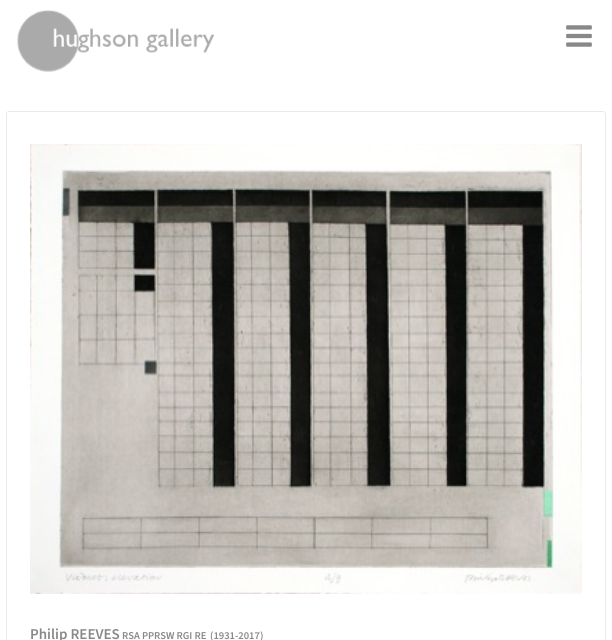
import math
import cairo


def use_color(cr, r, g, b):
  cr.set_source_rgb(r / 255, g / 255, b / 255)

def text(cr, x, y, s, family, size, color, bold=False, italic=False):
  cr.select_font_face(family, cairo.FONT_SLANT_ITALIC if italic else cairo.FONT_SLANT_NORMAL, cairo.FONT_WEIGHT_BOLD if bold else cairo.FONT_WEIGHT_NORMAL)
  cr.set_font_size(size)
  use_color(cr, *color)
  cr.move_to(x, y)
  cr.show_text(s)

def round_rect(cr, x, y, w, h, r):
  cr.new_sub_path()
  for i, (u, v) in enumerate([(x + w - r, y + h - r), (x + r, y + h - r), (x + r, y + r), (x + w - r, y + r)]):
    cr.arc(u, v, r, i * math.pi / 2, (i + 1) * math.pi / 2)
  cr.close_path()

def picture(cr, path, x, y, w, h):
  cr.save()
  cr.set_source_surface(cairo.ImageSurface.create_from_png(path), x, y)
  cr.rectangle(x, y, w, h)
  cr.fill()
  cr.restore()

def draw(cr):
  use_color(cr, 255, 255, 255)
  cr.paint()
  picture(cr, "img_01.png", 17, 10, 198, 62)
  picture(cr, "img_02.png", 566, 25, 26, 22)
  round_rect(cr, 6.5, 111.5, 599, 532, 2.5)
  use_color(cr, 234, 234, 234)
  cr.set_line_width(1)
  cr.stroke()
  picture(cr, "img_03.png", 30, 144, 552, 450)
  text(cr, 30, 639, "Philip REEVES", "Source Sans 3 SemiBold", 15, (136, 136, 136))
  text(cr, 122, 639, "RSA PPRSW RGI RE", "Source Sans 3 SemiBold", 10.5, (136, 136, 136))
  text(cr, 210, 639, "(1931-2017)", "Source Sans 3 SemiBold", 10.5, (136, 136, 136))


surface = cairo.ImageSurface(cairo.FORMAT_RGB24, 612, 640)
cr = cairo.Context(surface)
options = cairo.FontOptions()
options.set_hint_metrics(cairo.HINT_METRICS_OFF)
options.set_hint_style(cairo.HINT_STYLE_NONE)
cr.set_font_options(options)
cr.set_miter_limit(4)
draw(cr)
surface.write_to_png("out.png")
